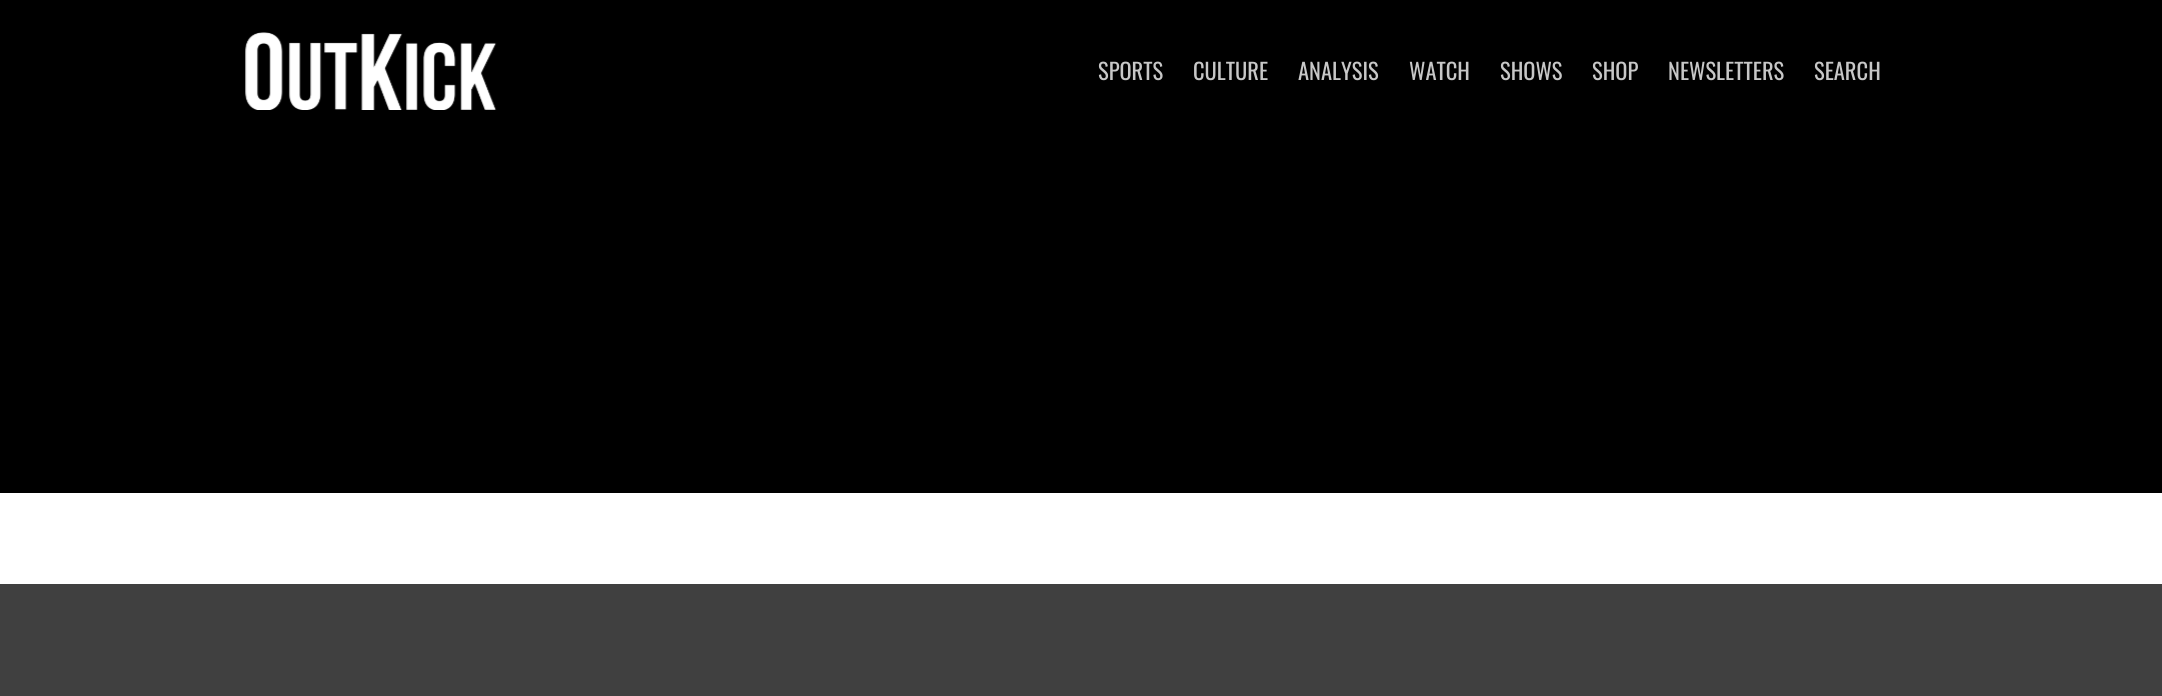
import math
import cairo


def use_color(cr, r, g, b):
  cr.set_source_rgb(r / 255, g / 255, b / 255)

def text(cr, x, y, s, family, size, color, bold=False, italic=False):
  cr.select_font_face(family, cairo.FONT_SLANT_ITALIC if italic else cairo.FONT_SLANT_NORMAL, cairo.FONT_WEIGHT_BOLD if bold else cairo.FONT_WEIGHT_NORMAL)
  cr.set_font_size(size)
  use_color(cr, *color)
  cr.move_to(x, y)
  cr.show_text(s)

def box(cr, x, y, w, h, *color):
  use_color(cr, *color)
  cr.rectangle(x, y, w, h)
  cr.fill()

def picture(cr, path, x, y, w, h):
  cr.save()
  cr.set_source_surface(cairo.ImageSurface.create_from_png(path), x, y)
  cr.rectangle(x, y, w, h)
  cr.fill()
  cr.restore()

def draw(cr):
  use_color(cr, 255, 255, 255)
  cr.paint()
  box(cr, 0, 0, 2162, 493, 0, 0, 0)
  picture(cr, "img_01.png", 245, 32, 252, 78)
  cr.set_source_rgba(0, 0, 0, 0.75)
  cr.rectangle(0, 584, 2162, 112)
  cr.fill()
  text(cr, 1098, 80, "SPORTS", "Oswald", 22.5, (199, 199, 199))
  text(cr, 1193, 80, "CULTURE", "Oswald", 22.5, (199, 199, 199))
  text(cr, 1298, 80, "ANALYSIS", "Oswald", 22.5, (199, 199, 199))
  text(cr, 1409, 80, "WATCH", "Oswald", 22.5, (199, 199, 199))
  text(cr, 1500, 80, "SHOWS", "Oswald", 22.5, (199, 199, 199))
  text(cr, 1592, 80, "SHOP", "Oswald", 22.5, (199, 199, 199))
  text(cr, 1668, 80, "NEWSLETTERS", "Oswald", 22.5, (199, 199, 199))
  text(cr, 1814, 80, "SEARCH", "Oswald", 22.5, (199, 199, 199))


surface = cairo.ImageSurface(cairo.FORMAT_RGB24, 2162, 696)
cr = cairo.Context(surface)
options = cairo.FontOptions()
options.set_hint_metrics(cairo.HINT_METRICS_OFF)
options.set_hint_style(cairo.HINT_STYLE_NONE)
cr.set_font_options(options)
cr.set_miter_limit(4)
draw(cr)
surface.write_to_png("out.png")
